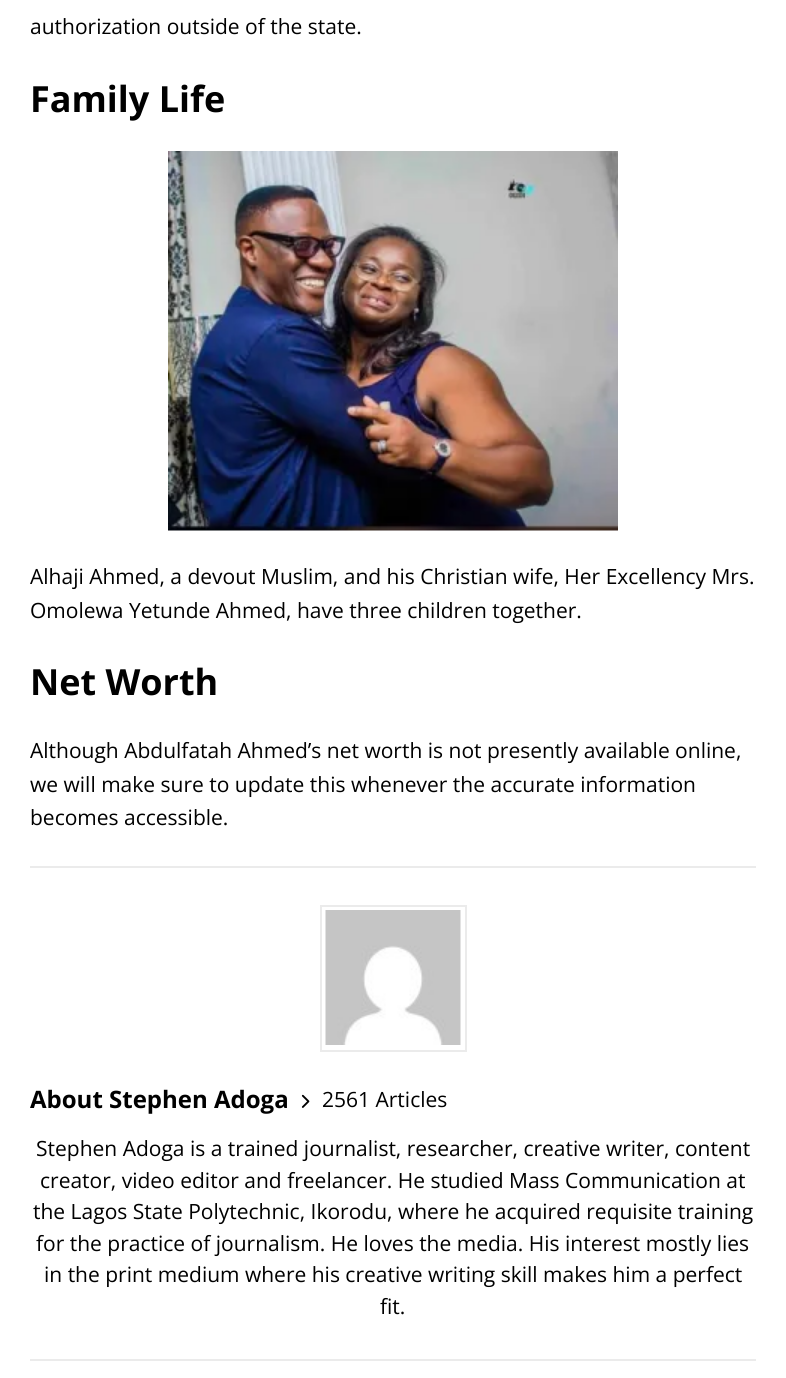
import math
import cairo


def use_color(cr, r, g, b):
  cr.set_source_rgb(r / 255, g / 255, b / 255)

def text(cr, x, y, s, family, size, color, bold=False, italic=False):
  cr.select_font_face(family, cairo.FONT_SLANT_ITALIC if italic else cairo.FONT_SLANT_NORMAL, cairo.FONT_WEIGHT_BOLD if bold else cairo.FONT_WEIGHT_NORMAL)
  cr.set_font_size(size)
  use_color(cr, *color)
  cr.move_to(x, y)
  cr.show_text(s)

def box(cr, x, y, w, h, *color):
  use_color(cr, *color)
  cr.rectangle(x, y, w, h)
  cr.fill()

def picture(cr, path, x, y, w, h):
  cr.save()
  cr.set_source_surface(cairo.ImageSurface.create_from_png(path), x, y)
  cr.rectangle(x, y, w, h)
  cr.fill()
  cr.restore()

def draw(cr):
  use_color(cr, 255, 255, 255)
  cr.paint()
  picture(cr, "img_01.png", 168, 151, 450, 380)
  box(cr, 30, 866, 726, 2, 235, 235, 235)
  box(cr, 30, 1359, 726, 2, 235, 235, 235)
  cr.rectangle(321, 906, 145, 145)
  cr.stroke()
  picture(cr, "img_02.png", 325, 910, 136, 135)
  picture(cr, "img_03.png", 301, 1094, 9, 14)
  text(cr, 30, 34, "authorization outside of the state.", "Open Sans", 21, (0, 0, 0))
  text(cr, 30, 112, "Family Life", "Open Sans", 36, (0, 0, 0), bold=True)
  text(cr, 30, 584, "Alhaji Ahmed, a devout Muslim, and his Christian wife, Her Excellency Mrs.", "Open Sans", 21, (0, 0, 0))
  text(cr, 30, 618, "Omolewa Yetunde Ahmed, have three children together.", "Open Sans", 21, (0, 0, 0))
  text(cr, 30, 695, "Net Worth", "Open Sans", 36, (0, 0, 0), bold=True)
  text(cr, 30, 758, "Although Abdulfatah Ahmed’s net worth is not presently available online,", "Open Sans", 21, (0, 0, 0))
  text(cr, 30, 792, "we will make sure to update this whenever the accurate information", "Open Sans", 21, (0, 0, 0))
  text(cr, 30, 825, "becomes accessible.", "Open Sans", 21, (0, 0, 0))
  text(cr, 30, 1108, "About Stephen Adoga", "Open Sans", 24, (0, 0, 0), bold=True)
  text(cr, 322, 1107, "2561 Articles", "Open Sans", 21, (0, 0, 0))
  text(cr, 36, 1156, "Stephen Adoga is a trained journalist, researcher, creative writer, content", "Open Sans", 21, (0, 0, 0))
  text(cr, 40, 1188, "creator, video editor and freelancer. He studied Mass Communication at", "Open Sans", 21, (0, 0, 0))
  text(cr, 33, 1219, "the Lagos State Polytechnic, Ikorodu, where he acquired requisite training", "Open Sans", 21, (0, 0, 0))
  text(cr, 36, 1251, "for the practice of journalism. He loves the media. His interest mostly lies", "Open Sans", 21, (0, 0, 0))
  text(cr, 44, 1282, "in the print medium where his creative writing skill makes him a perfect", "Open Sans", 21, (0, 0, 0))
  text(cr, 380, 1314, "fit.", "Open Sans", 21, (0, 0, 0))


surface = cairo.ImageSurface(cairo.FORMAT_RGB24, 786, 1378)
cr = cairo.Context(surface)
options = cairo.FontOptions()
options.set_hint_metrics(cairo.HINT_METRICS_OFF)
options.set_hint_style(cairo.HINT_STYLE_NONE)
cr.set_font_options(options)
cr.set_miter_limit(4)
draw(cr)
surface.write_to_png("out.png")
